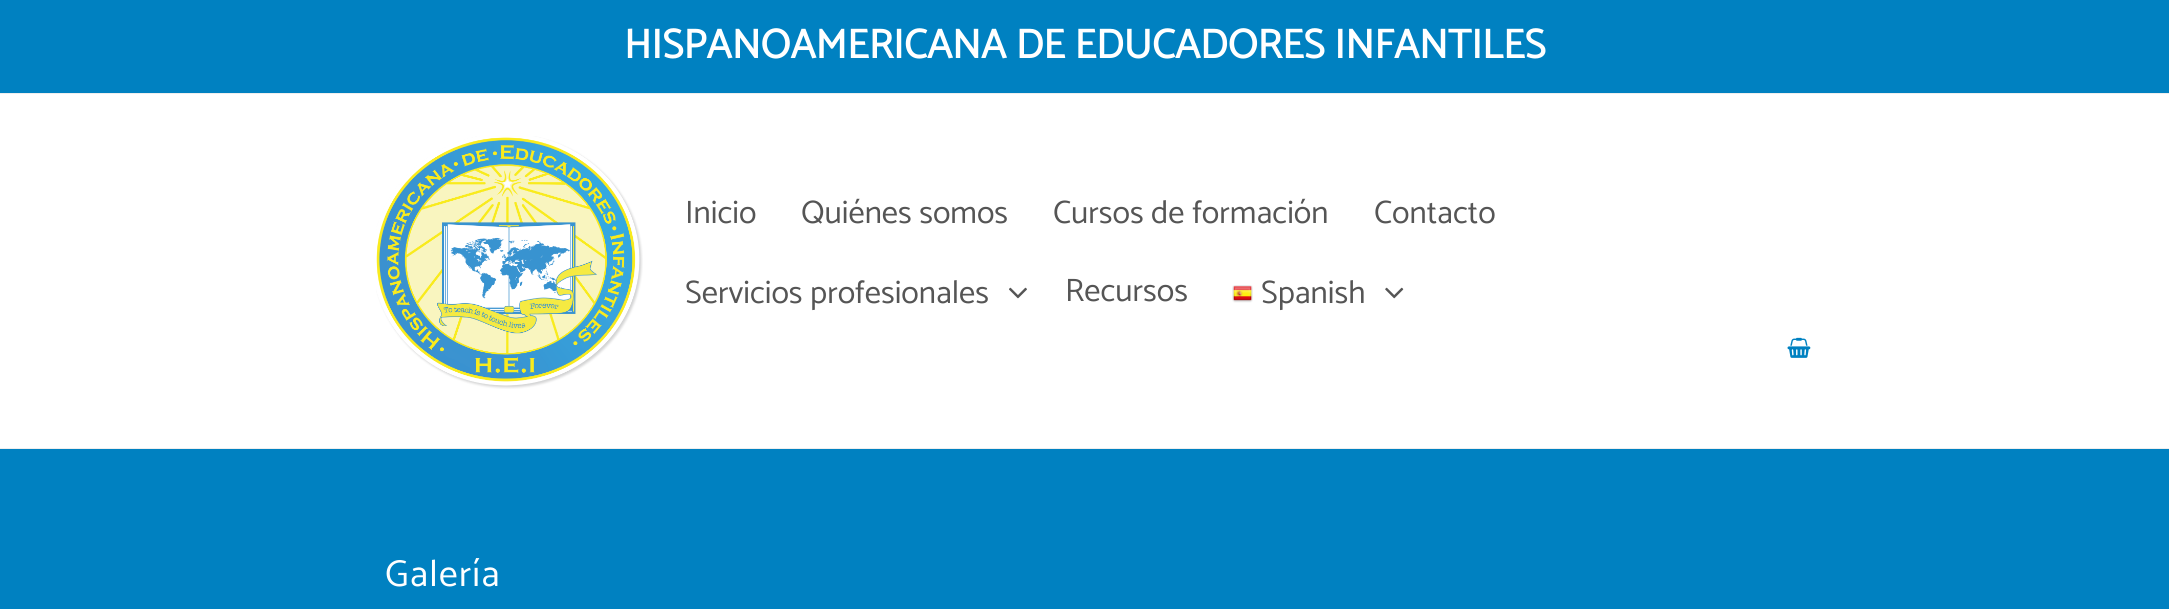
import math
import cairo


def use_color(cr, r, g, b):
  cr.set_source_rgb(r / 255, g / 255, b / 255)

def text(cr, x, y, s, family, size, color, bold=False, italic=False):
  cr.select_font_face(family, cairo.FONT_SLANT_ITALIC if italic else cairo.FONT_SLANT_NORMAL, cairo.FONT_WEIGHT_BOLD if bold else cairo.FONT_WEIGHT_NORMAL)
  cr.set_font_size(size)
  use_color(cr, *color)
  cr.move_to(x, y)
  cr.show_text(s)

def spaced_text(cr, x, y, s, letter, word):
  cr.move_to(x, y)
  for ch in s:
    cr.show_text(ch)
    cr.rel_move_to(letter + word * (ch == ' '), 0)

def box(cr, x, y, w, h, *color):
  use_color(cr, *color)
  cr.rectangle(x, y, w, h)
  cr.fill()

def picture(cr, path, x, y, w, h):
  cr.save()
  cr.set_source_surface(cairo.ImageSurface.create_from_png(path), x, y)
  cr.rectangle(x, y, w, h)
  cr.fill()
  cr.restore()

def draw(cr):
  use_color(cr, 0, 129, 193)
  cr.paint()
  box(cr, 0, 93, 2169, 1, 238, 238, 238)
  box(cr, 0, 94, 2169, 354, 255, 255, 255)
  box(cr, 0, 448, 2169, 1, 238, 238, 238)
  picture(cr, "img_01.png", 376, 136, 267, 253)
  picture(cr, "img_02.png", 1009, 287, 18, 12)
  picture(cr, "img_03.png", 1232, 285, 21, 18)
  picture(cr, "img_04.png", 1385, 287, 19, 12)
  picture(cr, "img_05.png", 1787, 337, 24, 21)
  text(cr, 624, 58, "HISPANOAMERICANA DE EDUCADORES INFANTILES", "Catamaran", 41.25, (255, 255, 255), bold=True)
  text(cr, 685, 223, "Inicio", "Catamaran", 32.5, (85, 85, 85))
  text(cr, 801, 223, "Quiénes somos", "Catamaran", 32.5, (85, 85, 85))
  text(cr, 1053, 223, "Cursos de formación", "Catamaran", 32.5, (85, 85, 85))
  text(cr, 1374, 223, "Contacto", "Catamaran", 32.5, (85, 85, 85))
  text(cr, 685, 303, "Servicios profesionales", "Catamaran", 32.5, (85, 85, 85))
  text(cr, 1065, 301, "Recursos", "Catamaran", 32.5, (85, 85, 85))
  text(cr, 1261, 303, "Spanish", "Catamaran", 32.5, (85, 85, 85))
  cr.set_font_size(37.5)
  use_color(cr, 255, 255, 255)
  spaced_text(cr, 385, 586, "Galería", 1.25, 0)


surface = cairo.ImageSurface(cairo.FORMAT_RGB24, 2169, 609)
cr = cairo.Context(surface)
options = cairo.FontOptions()
options.set_hint_metrics(cairo.HINT_METRICS_OFF)
options.set_hint_style(cairo.HINT_STYLE_NONE)
cr.set_font_options(options)
cr.set_miter_limit(4)
draw(cr)
surface.write_to_png("out.png")
